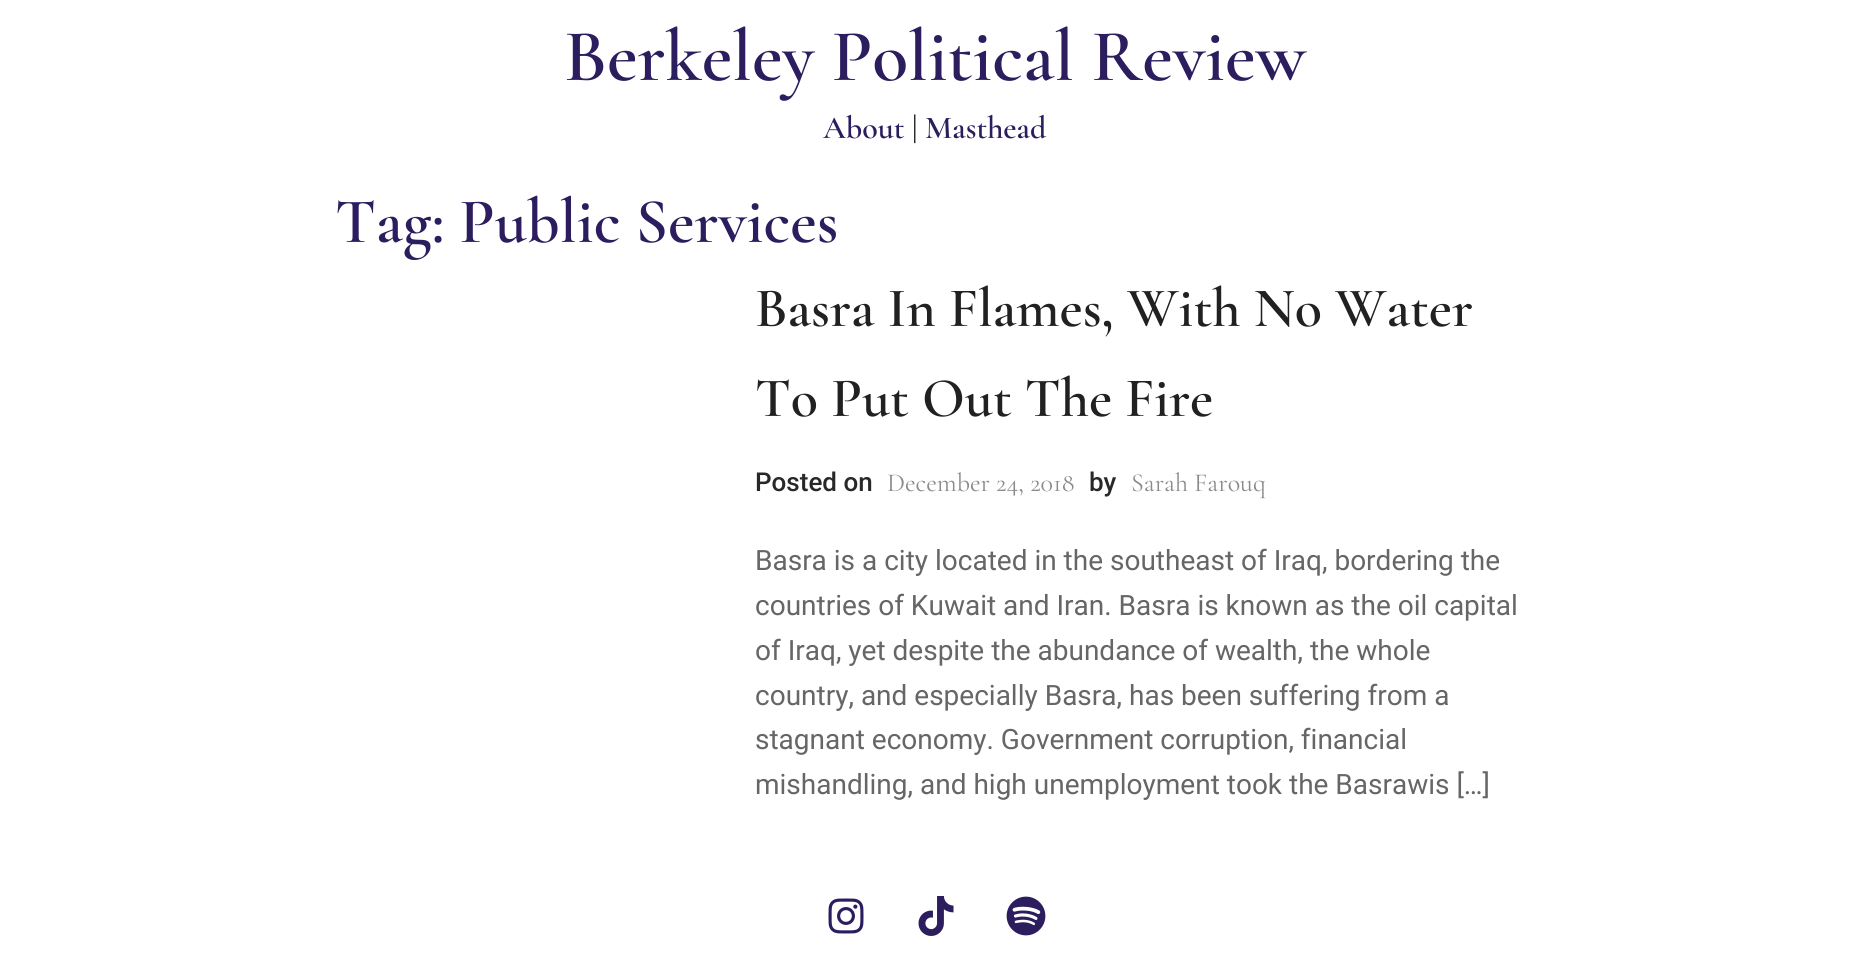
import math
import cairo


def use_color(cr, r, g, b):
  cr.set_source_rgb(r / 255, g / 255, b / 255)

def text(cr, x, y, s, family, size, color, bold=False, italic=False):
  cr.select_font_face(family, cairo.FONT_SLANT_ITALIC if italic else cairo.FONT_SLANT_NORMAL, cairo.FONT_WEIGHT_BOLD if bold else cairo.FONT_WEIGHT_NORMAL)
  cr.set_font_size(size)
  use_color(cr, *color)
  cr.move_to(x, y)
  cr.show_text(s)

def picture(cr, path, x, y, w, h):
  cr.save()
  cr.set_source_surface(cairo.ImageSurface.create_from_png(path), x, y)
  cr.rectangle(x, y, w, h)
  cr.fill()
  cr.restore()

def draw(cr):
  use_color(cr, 255, 255, 255)
  cr.paint()
  picture(cr, "img_01.png", 828, 898, 36, 36)
  picture(cr, "img_02.png", 918, 896, 36, 40)
  picture(cr, "img_03.png", 1006, 896, 40, 40)
  text(cr, 564, 80, "Berkeley Political Review", "Cormorant Garamond SemiBold", 74, (43, 29, 94))
  text(cr, 823, 138, "About", "Cormorant Garamond SemiBold", 32, (43, 29, 94))
  text(cr, 912, 138, "|", "Cormorant Garamond SemiBold", 32, (40, 40, 40))
  text(cr, 925, 138, "Masthead", "Cormorant Garamond SemiBold", 32, (43, 29, 94))
  text(cr, 335, 242, "Tag: Public Services", "Cormorant Garamond SemiBold", 64, (43, 29, 94))
  text(cr, 755, 326, "Basra In Flames, With No Water", "Cormorant Garamond SemiBold", 56, (33, 33, 33))
  text(cr, 755, 416, "To Put Out The Fire", "Cormorant Garamond SemiBold", 56, (33, 33, 33))
  text(cr, 755, 491, "Posted on", "Roboto Medium", 26, (40, 40, 40))
  text(cr, 887, 491, "December 24, 2018", "Cormorant Garamond", 26, (138, 138, 140))
  text(cr, 1089, 491, "by", "Roboto Medium", 26, (40, 40, 40))
  text(cr, 1131, 491, "Sarah Farouq", "Cormorant Garamond", 26, (138, 138, 140))
  text(cr, 755, 570, "Basra is a city located in the southeast of Iraq, bordering the", "Roboto", 28, (102, 102, 102))
  text(cr, 755, 615, "countries of Kuwait and Iran. Basra is known as the oil capital", "Roboto", 28, (102, 102, 102))
  text(cr, 755, 660, "of Iraq, yet despite the abundance of wealth, the whole", "Roboto", 28, (102, 102, 102))
  text(cr, 755, 705, "country, and especially Basra, has been suffering from a", "Roboto", 28, (102, 102, 102))
  text(cr, 755, 749, "stagnant economy. Government corruption, financial", "Roboto", 28, (102, 102, 102))
  text(cr, 755, 794, "mishandling, and high unemployment took the Basrawis […]", "Roboto", 28, (102, 102, 102))


surface = cairo.ImageSurface(cairo.FORMAT_RGB24, 1870, 957)
cr = cairo.Context(surface)
options = cairo.FontOptions()
options.set_hint_metrics(cairo.HINT_METRICS_OFF)
options.set_hint_style(cairo.HINT_STYLE_NONE)
cr.set_font_options(options)
cr.set_miter_limit(4)
draw(cr)
surface.write_to_png("out.png")
